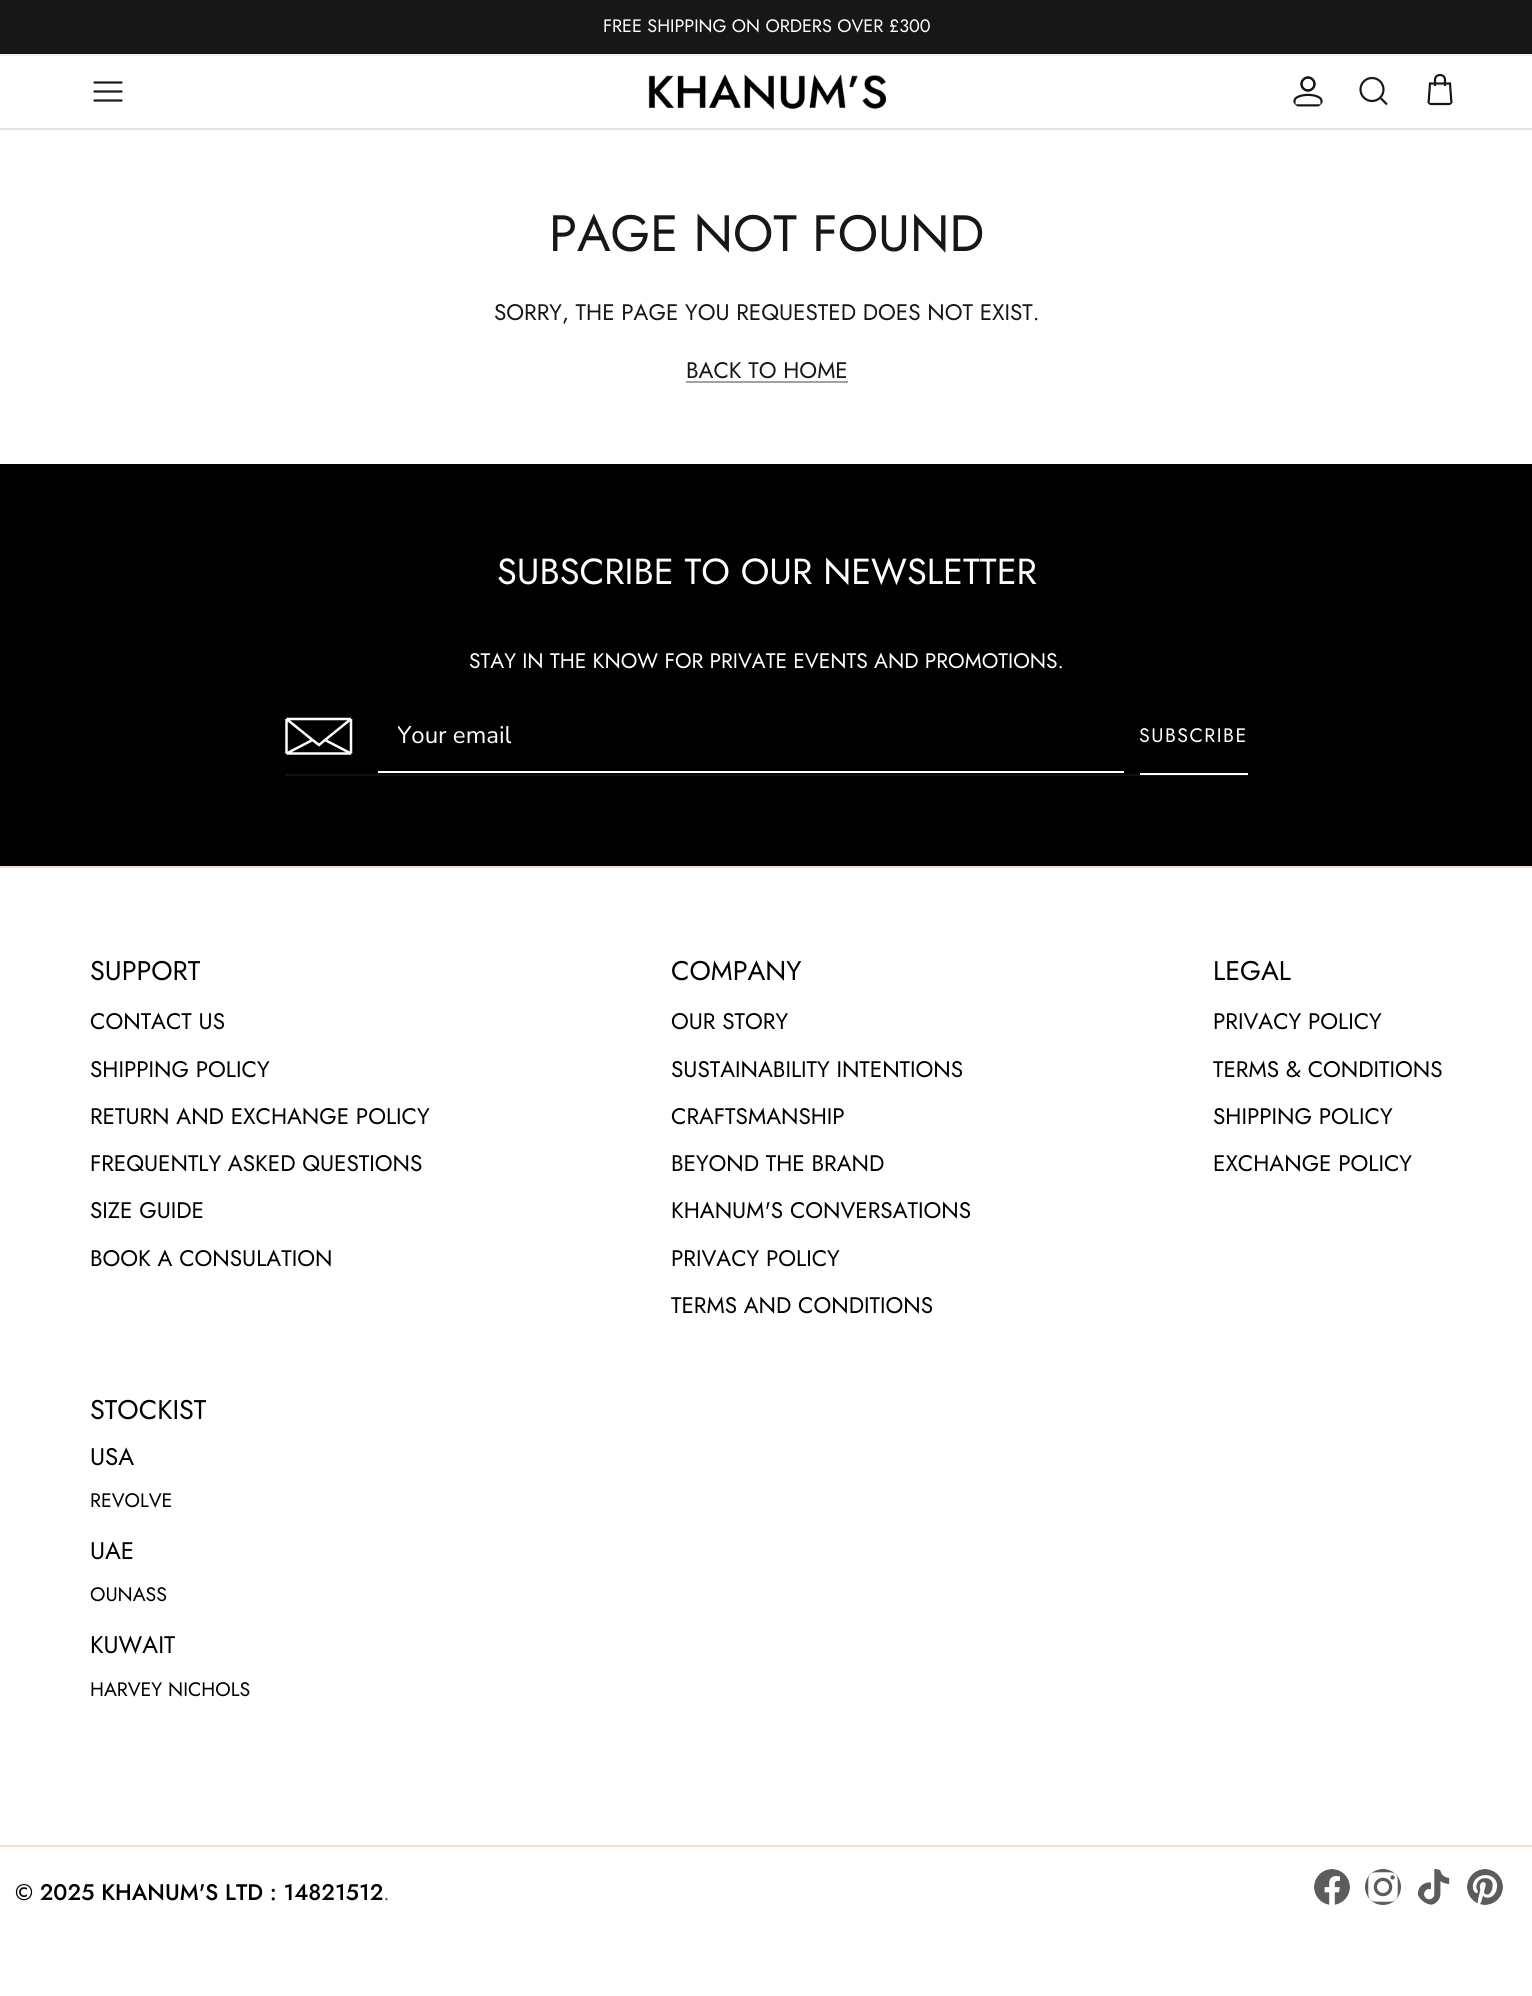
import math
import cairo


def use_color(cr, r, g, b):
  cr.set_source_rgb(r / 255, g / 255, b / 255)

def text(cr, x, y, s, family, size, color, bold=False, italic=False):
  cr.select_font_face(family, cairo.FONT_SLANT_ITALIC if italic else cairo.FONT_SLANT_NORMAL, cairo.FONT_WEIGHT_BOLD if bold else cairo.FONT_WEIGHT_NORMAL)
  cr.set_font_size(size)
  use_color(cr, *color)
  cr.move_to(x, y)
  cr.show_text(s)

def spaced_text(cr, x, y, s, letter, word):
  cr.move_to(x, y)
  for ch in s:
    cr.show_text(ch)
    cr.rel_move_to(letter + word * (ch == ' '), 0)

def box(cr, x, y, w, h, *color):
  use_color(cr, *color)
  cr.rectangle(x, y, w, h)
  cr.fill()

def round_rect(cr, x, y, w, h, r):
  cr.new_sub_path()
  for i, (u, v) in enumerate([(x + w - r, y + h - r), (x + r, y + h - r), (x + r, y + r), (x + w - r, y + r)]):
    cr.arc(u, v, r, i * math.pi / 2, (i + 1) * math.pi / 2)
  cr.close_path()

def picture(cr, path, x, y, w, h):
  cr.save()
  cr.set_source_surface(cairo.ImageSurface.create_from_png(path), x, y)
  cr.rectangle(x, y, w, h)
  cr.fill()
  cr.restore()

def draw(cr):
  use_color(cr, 255, 255, 255)
  cr.paint()
  box(cr, 0, 0, 1532, 54, 23, 23, 23)
  box(cr, 0, 54, 1532, 2, 238, 238, 238)
  box(cr, 0, 128, 1532, 2, 223, 227, 232)
  cr.new_path()
  cr.move_to(94.5, 91.5)
  cr.line_to(121.5, 91.5)
  cr.move_to(94.5, 82.5)
  cr.line_to(121.5, 82.5)
  cr.move_to(94.5, 100.5)
  cr.line_to(121.5, 100.5)
  use_color(cr, 23, 23, 23)
  cr.set_line_width(2.2)
  cr.set_line_cap(cairo.LINE_CAP_ROUND)
  cr.set_line_join(cairo.LINE_JOIN_ROUND)
  cr.stroke()
  picture(cr, "img_01.png", 648, 74, 239, 36)
  picture(cr, "img_02.png", 1293, 76, 30, 31)
  cr.arc(1372, 89.5, 11.5, 0, 2 * math.pi)
  cr.set_line_cap(cairo.LINE_CAP_BUTT)
  cr.set_line_join(cairo.LINE_JOIN_MITER)
  cr.stroke()
  cr.save()
  round_rect(cr, 1356, 74, 36, 36, 18)
  cr.clip()
  cr.new_path()
  cr.move_to(1381.5, 99)
  cr.line_to(1388, 105.5)
  cr.set_line_cap(cairo.LINE_CAP_SQUARE)
  cr.stroke()
  cr.restore()
  cr.new_path()
  cr.move_to(1445, 86)
  cr.line_to(1445, 80)
  cr.curve_to(1445, 77, 1443, 75, 1440, 75)
  cr.curve_to(1437, 75, 1435, 77, 1435, 80)
  cr.line_to(1435, 86)
  cr.stroke()
  cr.save()
  round_rect(cr, 1422, 72, 36, 36, 18)
  cr.clip()
  cr.new_path()
  cr.move_to(1430, 83.5)
  cr.line_to(1450, 83.5)
  cr.line_to(1451.5, 104)
  cr.line_to(1428.5, 104)
  cr.close_path()
  cr.stroke()
  cr.restore()
  box(cr, 686, 381, 162, 2, 162, 162, 162)
  box(cr, 0, 464, 1532, 402, 0, 0, 0)
  box(cr, 285, 774, 963, 2, 17, 17, 17)
  cr.new_path()
  cr.move_to(286.5, 719)
  cr.line_to(286.5, 753.5)
  cr.move_to(286.5, 719)
  cr.line_to(351, 719)
  cr.move_to(286.5, 719)
  cr.line_to(312.5, 740)
  cr.move_to(286.5, 753.5)
  cr.line_to(351, 753.5)
  cr.move_to(286.5, 753.5)
  cr.line_to(312.5, 740)
  cr.move_to(351, 753.5)
  cr.line_to(351, 719)
  cr.move_to(351, 753.5)
  cr.line_to(325, 740)
  cr.move_to(351, 719)
  cr.line_to(325, 740)
  cr.move_to(312.5, 740)
  cr.line_to(319, 745)
  cr.line_to(325, 740)
  use_color(cr, 255, 255, 255)
  cr.set_line_width(2.5)
  cr.stroke()
  box(cr, 378, 771, 746, 2, 255, 255, 255)
  box(cr, 1140, 773, 108, 2, 255, 255, 255)
  box(cr, 0, 866, 1532, 2, 239, 223, 199)
  box(cr, 0, 1845, 1532, 2, 239, 223, 199)
  picture(cr, "img_03.png", 1314, 1869, 36, 36)
  picture(cr, "img_04.png", 1365, 1869, 36, 36)
  picture(cr, "img_05.png", 1417, 1869, 33, 36)
  picture(cr, "img_06.png", 1467, 1869, 36, 36)
  text(cr, 603, 32, "FREE SHIPPING ON ORDERS OVER £300", "Jost", 18, (255, 255, 255))
  text(cr, 549, 251, "PAGE NOT FOUND", "Jost", 51, (23, 23, 23))
  text(cr, 494, 320, "SORRY, THE PAGE YOU REQUESTED DOES NOT EXIST.", "Jost", 22.5, (23, 23, 23))
  text(cr, 686, 378, "BACK TO HOME", "Jost", 22.5, (23, 23, 23))
  text(cr, 497, 584, "SUBSCRIBE TO OUR NEWSLETTER", "Jost", 36.2, (255, 255, 255))
  text(cr, 469, 668, "STAY IN THE KNOW FOR PRIVATE EVENTS AND PROMOTIONS.", "Jost", 21, (255, 255, 255))
  cr.save()
  cr.rectangle(398, 719, 705, 33)
  cr.clip()
  text(cr, 397, 743, "Your email", "Nunito Sans", 24, (255, 255, 255))
  cr.restore()
  cr.set_font_size(19.5)
  spaced_text(cr, 1139, 742, "SUBSCRIBE", 1.5, 0)
  text(cr, 90, 980, "SUPPORT", "Jost", 27, (0, 0, 0))
  text(cr, 90, 1029, "CONTACT US", "Jost", 22.5, (0, 0, 0))
  text(cr, 90, 1077, "SHIPPING POLICY", "Jost", 22.5, (0, 0, 0))
  text(cr, 90, 1124, "RETURN AND EXCHANGE POLICY", "Jost", 22.5, (0, 0, 0))
  text(cr, 90, 1171, "FREQUENTLY ASKED QUESTIONS", "Jost", 22.5, (0, 0, 0))
  text(cr, 90, 1218, "SIZE GUIDE", "Jost", 22.5, (0, 0, 0))
  text(cr, 90, 1266, "BOOK A CONSULATION", "Jost", 22.5, (0, 0, 0))
  text(cr, 671, 980, "COMPANY", "Jost", 27, (0, 0, 0))
  text(cr, 671, 1029, "OUR STORY", "Jost", 22.5, (0, 0, 0))
  text(cr, 671, 1077, "SUSTAINABILITY INTENTIONS", "Jost", 22.5, (0, 0, 0))
  text(cr, 671, 1124, "CRAFTSMANSHIP", "Jost", 22.5, (0, 0, 0))
  text(cr, 671, 1171, "BEYOND THE BRAND", "Jost", 22.5, (0, 0, 0))
  text(cr, 671, 1218, "KHANUM'S CONVERSATIONS", "Jost", 22.5, (0, 0, 0))
  text(cr, 671, 1266, "PRIVACY POLICY", "Jost", 22.5, (0, 0, 0))
  text(cr, 671, 1313, "TERMS AND CONDITIONS", "Jost", 22.5, (0, 0, 0))
  text(cr, 1213, 980, "LEGAL", "Jost", 27, (0, 0, 0))
  text(cr, 1213, 1029, "PRIVACY POLICY", "Jost", 22.5, (0, 0, 0))
  text(cr, 1213, 1077, "TERMS & CONDITIONS", "Jost", 22.5, (0, 0, 0))
  text(cr, 1213, 1124, "SHIPPING POLICY", "Jost", 22.5, (0, 0, 0))
  text(cr, 1213, 1171, "EXCHANGE POLICY", "Jost", 22.5, (0, 0, 0))
  text(cr, 90, 1419, "STOCKIST", "Jost", 27, (0, 0, 0))
  text(cr, 90, 1465, "USA", "Jost", 24, (0, 0, 0))
  text(cr, 90, 1507, "REVOLVE", "Jost", 19.5, (0, 0, 0))
  text(cr, 90, 1559, "UAE", "Jost", 24, (0, 0, 0))
  text(cr, 90, 1601, "OUNASS", "Jost", 19.5, (0, 0, 0))
  text(cr, 90, 1653, "KUWAIT", "Jost", 24, (0, 0, 0))
  text(cr, 90, 1696, "HARVEY NICHOLS", "Jost", 19.5, (0, 0, 0))
  text(cr, 15, 1900, "© 2025 KHANUM'S LTD : 14821512", "Jost Medium", 22.5, (0, 0, 0))
  text(cr, 383, 1900, ".", "Jost", 22.5, (92, 92, 92))


surface = cairo.ImageSurface(cairo.FORMAT_RGB24, 1532, 1996)
cr = cairo.Context(surface)
options = cairo.FontOptions()
options.set_hint_metrics(cairo.HINT_METRICS_OFF)
options.set_hint_style(cairo.HINT_STYLE_NONE)
cr.set_font_options(options)
cr.set_miter_limit(4)
draw(cr)
surface.write_to_png("out.png")
